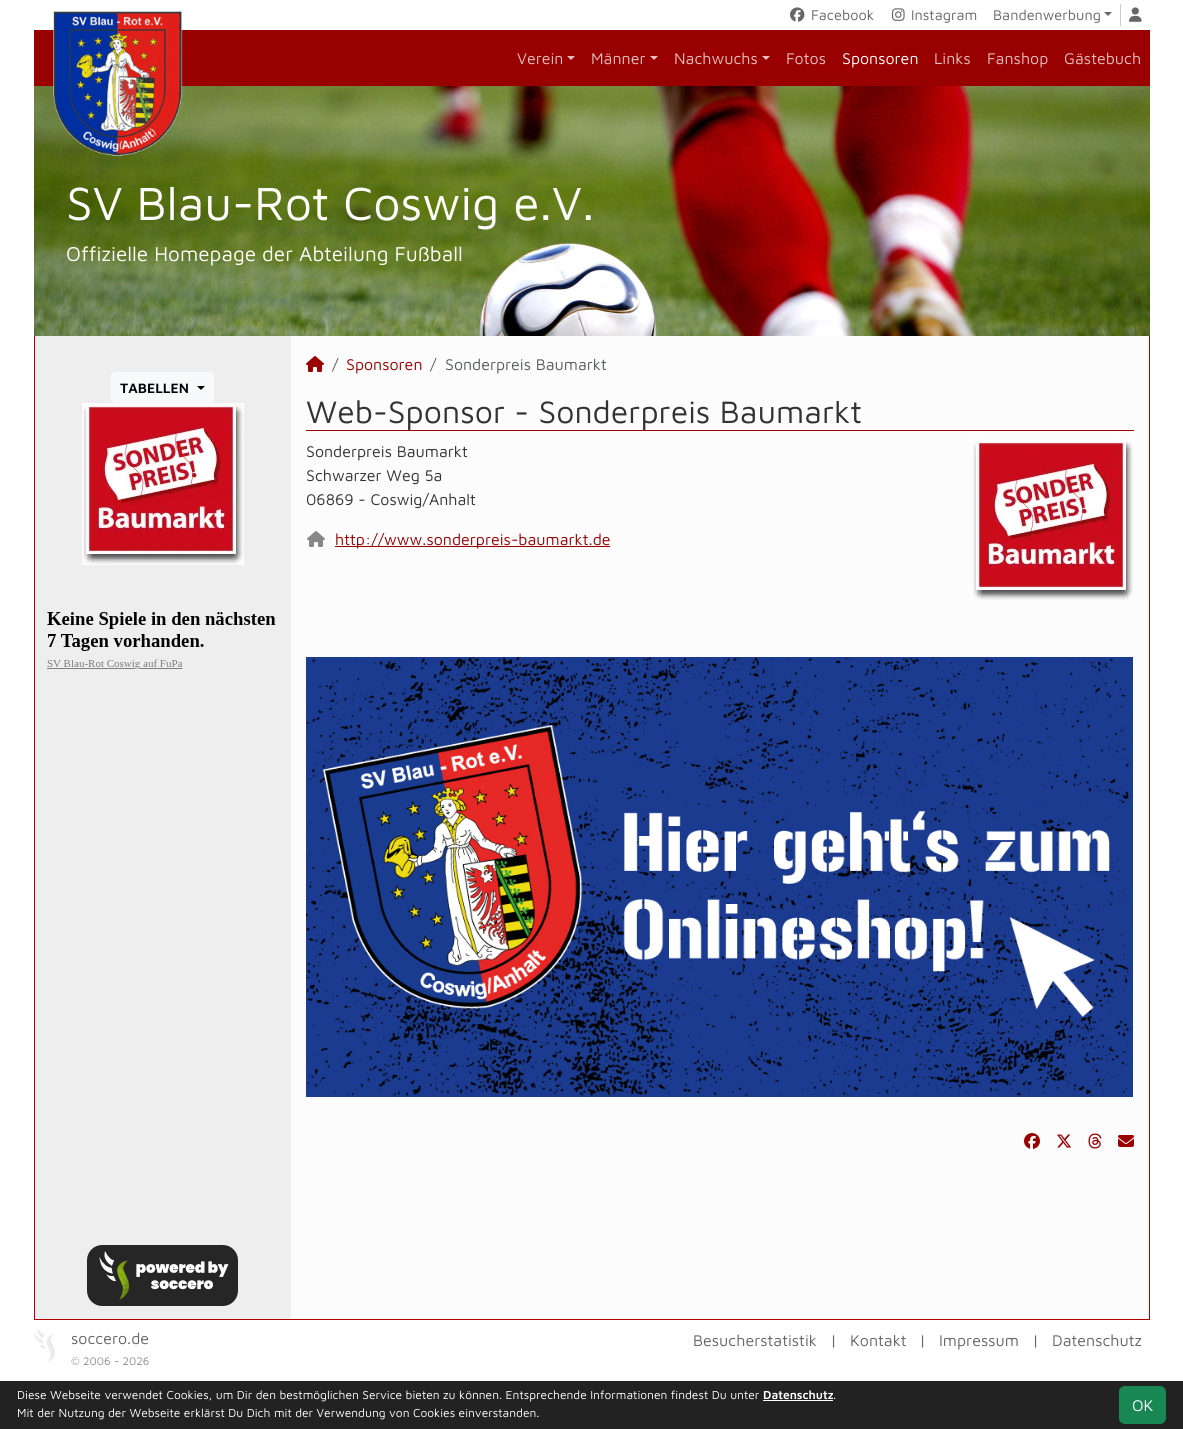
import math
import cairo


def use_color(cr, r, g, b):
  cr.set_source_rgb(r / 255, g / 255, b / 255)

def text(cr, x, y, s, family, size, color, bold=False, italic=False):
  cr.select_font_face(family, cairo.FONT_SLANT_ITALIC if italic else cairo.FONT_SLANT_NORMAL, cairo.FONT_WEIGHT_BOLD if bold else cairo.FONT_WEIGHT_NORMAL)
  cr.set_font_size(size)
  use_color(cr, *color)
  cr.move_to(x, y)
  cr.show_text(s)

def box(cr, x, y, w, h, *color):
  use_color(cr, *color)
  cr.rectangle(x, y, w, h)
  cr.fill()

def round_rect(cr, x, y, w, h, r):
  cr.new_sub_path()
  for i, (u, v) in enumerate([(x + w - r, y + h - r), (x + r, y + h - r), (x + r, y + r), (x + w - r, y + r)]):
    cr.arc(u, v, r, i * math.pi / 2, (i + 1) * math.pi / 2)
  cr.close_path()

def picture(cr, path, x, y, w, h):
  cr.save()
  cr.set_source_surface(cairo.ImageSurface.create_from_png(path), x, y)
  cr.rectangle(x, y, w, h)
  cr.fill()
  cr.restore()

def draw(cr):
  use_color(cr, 255, 255, 255)
  cr.paint()
  box(cr, 34, 30, 1116, 56, 153, 0, 0)
  picture(cr, "img_05.png", 34, 86, 1116, 250)
  picture(cr, "img_01.png", 53, 11, 130, 145)
  picture(cr, "img_02.png", 790, 7, 15, 15)
  picture(cr, "img_03.png", 892, 8, 13, 13)
  box(cr, 1120, 4, 1, 22, 204, 204, 204)
  use_color(cr, 102, 102, 102)
  cr.new_path()
  cr.move_to(1104, 12)
  cr.line_to(1112, 12)
  cr.line_to(1108, 16)
  cr.close_path()
  cr.fill()
  picture(cr, "img_04.png", 1129, 7, 13, 15)
  use_color(cr, 230, 191, 191)
  cr.new_path()
  cr.move_to(567, 56)
  cr.line_to(575, 56)
  cr.line_to(571, 60)
  cr.close_path()
  cr.fill()
  cr.new_path()
  cr.move_to(650, 56)
  cr.line_to(658, 56)
  cr.line_to(654, 60)
  cr.close_path()
  cr.fill()
  cr.new_path()
  cr.move_to(762, 56)
  cr.line_to(770, 56)
  cr.line_to(766, 60)
  cr.close_path()
  cr.fill()
  box(cr, 291, 336, 858, 983, 252, 252, 252)
  box(cr, 1149, 336, 1, 984, 178, 0, 0)
  box(cr, 34, 1319, 1116, 1, 178, 0, 0)
  box(cr, 34, 336, 1, 984, 178, 0, 0)
  box(cr, 35, 336, 256, 983, 238, 238, 238)
  use_color(cr, 248, 249, 250)
  round_rect(cr, 111.5, 372.5, 102, 30, 3.5)
  cr.fill_preserve()
  cr.set_line_width(1)
  cr.stroke()
  use_color(cr, 0, 0, 0)
  cr.new_path()
  cr.move_to(197, 386)
  cr.line_to(205, 386)
  cr.line_to(201, 390)
  cr.close_path()
  cr.fill()
  picture(cr, "img_06.png", 82, 403, 162, 162)
  picture(cr, "img_07.png", 47, 612, 229, 57)
  picture(cr, "img_08.png", 87, 1245, 151, 61)
  picture(cr, "img_09.png", 306, 356, 18, 16)
  box(cr, 306, 430, 828, 1, 153, 0, 0)
  picture(cr, "img_10.png", 307, 531, 18, 16)
  box(cr, 335, 546, 275, 1, 153, 0, 0)
  picture(cr, "img_11.png", 973, 439, 160, 161)
  picture(cr, "img_12.png", 306, 657, 827, 440)
  picture(cr, "img_13.png", 1024, 1133, 16, 16)
  picture(cr, "img_14.png", 1057, 1134, 15, 14)
  picture(cr, "img_15.png", 1088, 1133, 14, 16)
  picture(cr, "img_16.png", 1118, 1135, 16, 12)
  picture(cr, "img_17.png", 34, 1328, 21, 34)
  box(cr, 0, 1381, 1183, 48, 34, 34, 34)
  box(cr, 763, 1400, 70, 1, 255, 255, 255)
  use_color(cr, 25, 135, 84)
  round_rect(cr, 1119.5, 1386.5, 46, 37, 5.5)
  cr.fill_preserve()
  cr.stroke()
  text(cr, 811, 20, "Facebook", "Maven Pro", 14.5, (102, 102, 102))
  text(cr, 911, 20, "Instagram", "Maven Pro", 14.5, (102, 102, 102))
  text(cr, 993, 20, "Bandenwerbung", "Maven Pro", 14.5, (102, 102, 102))
  text(cr, 517, 64, "Verein", "Maven Pro", 16, (230, 191, 191))
  text(cr, 591, 64, "Männer", "Maven Pro", 16, (230, 191, 191))
  text(cr, 674, 64, "Nachwuchs", "Maven Pro", 16, (230, 191, 191))
  text(cr, 786, 64, "Fotos", "Maven Pro", 16, (230, 191, 191))
  text(cr, 842, 64, "Sponsoren", "Maven Pro", 16, (255, 255, 255))
  text(cr, 934, 64, "Links", "Maven Pro", 16, (230, 191, 191))
  text(cr, 987, 64, "Fanshop", "Maven Pro", 16, (230, 191, 191))
  text(cr, 1064, 64, "Gästebuch", "Maven Pro", 16, (230, 191, 191))
  text(cr, 66, 220, "SV Blau-Rot Coswig e.V.", "Maven Pro", 48, (255, 255, 255))
  text(cr, 66, 261, "Offizielle Homepage der Abteilung Fußball", "Maven Pro", 20.75, (255, 255, 255))
  text(cr, 120, 393, "TABELLEN", "Maven Pro SemiBold", 14, (0, 0, 0))
  text(cr, 332, 370, "/", "Maven Pro", 16, (88, 91, 94))
  text(cr, 346, 370, "Sponsoren", "Maven Pro", 16, (153, 0, 0))
  text(cr, 430, 370, "/", "Maven Pro", 16, (88, 91, 94))
  text(cr, 445, 370, "Sonderpreis Baumarkt", "Maven Pro", 16, (88, 91, 94))
  text(cr, 306, 423, "Web-Sponsor - Sonderpreis Baumarkt", "Maven Pro", 32, (51, 51, 51))
  text(cr, 306, 457, "Sonderpreis Baumarkt", "Maven Pro", 16, (51, 51, 51))
  text(cr, 306, 481, "Schwarzer Weg 5a", "Maven Pro", 16, (51, 51, 51))
  text(cr, 306, 505, "06869 - Coswig/Anhalt", "Maven Pro", 16, (51, 51, 51))
  text(cr, 335, 545, "http://www.sonderpreis-baumarkt.de", "Maven Pro", 16, (153, 0, 0))
  text(cr, 71, 1344, "soccero.de", "Maven Pro", 16, (102, 102, 102))
  text(cr, 71, 1365, "© 2006 - 2026", "Maven Pro", 11.25, (136, 136, 136))
  text(cr, 693, 1346, "Besucherstatistik", "Maven Pro", 16, (102, 102, 102))
  text(cr, 830, 1346, "|", "Maven Pro", 16, (102, 102, 102))
  text(cr, 850, 1346, "Kontakt", "Maven Pro", 16, (102, 102, 102))
  text(cr, 919, 1346, "|", "Maven Pro", 16, (102, 102, 102))
  text(cr, 939, 1346, "Impressum", "Maven Pro", 16, (102, 102, 102))
  text(cr, 1032, 1346, "|", "Maven Pro", 16, (102, 102, 102))
  text(cr, 1052, 1346, "Datenschutz", "Maven Pro", 16, (102, 102, 102))
  text(cr, 17, 1399, "Diese Webseite verwendet Cookies, um Dir den bestmöglichen Service bieten zu können. Entsprechende Informationen findest Du unter", "Maven Pro", 12, (255, 255, 255))
  text(cr, 763, 1399, "Datenschutz", "Maven Pro SemiBold", 12, (255, 255, 255))
  text(cr, 833, 1399, ".", "Maven Pro", 12, (255, 255, 255))
  text(cr, 17, 1417, "Mit der Nutzung der Webseite erklärst Du Dich mit der Verwendung von Cookies einverstanden.", "Maven Pro", 12, (255, 255, 255))
  text(cr, 1132, 1411, "OK", "Maven Pro", 16, (255, 255, 255))


surface = cairo.ImageSurface(cairo.FORMAT_RGB24, 1183, 1429)
cr = cairo.Context(surface)
options = cairo.FontOptions()
options.set_hint_metrics(cairo.HINT_METRICS_OFF)
options.set_hint_style(cairo.HINT_STYLE_NONE)
cr.set_font_options(options)
cr.set_miter_limit(4)
draw(cr)
surface.write_to_png("out.png")
